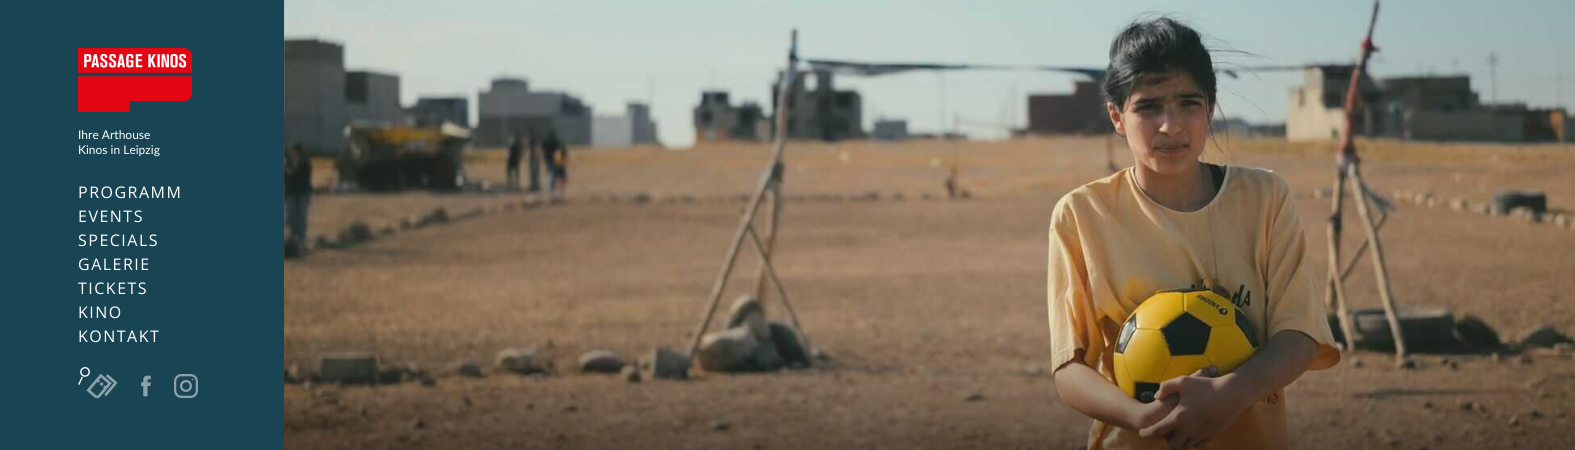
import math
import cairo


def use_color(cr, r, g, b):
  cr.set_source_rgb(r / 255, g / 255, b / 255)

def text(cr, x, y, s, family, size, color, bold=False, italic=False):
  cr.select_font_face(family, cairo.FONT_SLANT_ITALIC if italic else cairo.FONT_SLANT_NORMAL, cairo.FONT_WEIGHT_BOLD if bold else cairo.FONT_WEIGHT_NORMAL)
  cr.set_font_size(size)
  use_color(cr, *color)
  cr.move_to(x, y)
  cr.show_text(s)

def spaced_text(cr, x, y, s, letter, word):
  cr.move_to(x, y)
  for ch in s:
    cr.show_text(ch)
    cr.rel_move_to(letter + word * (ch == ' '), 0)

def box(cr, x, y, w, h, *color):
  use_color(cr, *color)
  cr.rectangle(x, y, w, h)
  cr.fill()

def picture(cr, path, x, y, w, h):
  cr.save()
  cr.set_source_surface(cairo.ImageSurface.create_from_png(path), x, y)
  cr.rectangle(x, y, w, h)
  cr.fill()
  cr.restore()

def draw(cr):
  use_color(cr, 255, 255, 255)
  cr.paint()
  box(cr, 0, 0, 284, 450, 25, 68, 84)
  picture(cr, "img_01.png", 78, 48, 114, 64)
  picture(cr, "img_02.png", 284, 0, 1291, 450)
  picture(cr, "img_03.png", 78, 367, 12, 18)
  picture(cr, "img_04.png", 86, 373, 32, 26)
  picture(cr, "img_05.png", 141, 375, 10, 22)
  picture(cr, "img_06.png", 174, 374, 24, 24)
  text(cr, 78, 139, "Ihre Arthouse", "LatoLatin", 12, (255, 255, 255))
  text(cr, 78, 154, "Kinos in Leipzig", "LatoLatin", 12, (255, 255, 255))
  cr.select_font_face("Open Sans")
  cr.set_font_size(16)
  spaced_text(cr, 78, 198, "PROGRAMM", 1.5, 0)
  spaced_text(cr, 78, 222, "EVENTS", 1.5, 0)
  spaced_text(cr, 78, 246, "SPECIALS", 1.5, 0)
  spaced_text(cr, 78, 270, "GALERIE", 1.5, 0)
  spaced_text(cr, 78, 294, "TICKETS", 1.5, 0)
  spaced_text(cr, 78, 318, "KINO", 1.5, 0)
  spaced_text(cr, 78, 342, "KONTAKT", 1.5, 0)


surface = cairo.ImageSurface(cairo.FORMAT_RGB24, 1575, 450)
cr = cairo.Context(surface)
options = cairo.FontOptions()
options.set_hint_metrics(cairo.HINT_METRICS_OFF)
options.set_hint_style(cairo.HINT_STYLE_NONE)
cr.set_font_options(options)
cr.set_miter_limit(4)
draw(cr)
surface.write_to_png("out.png")
